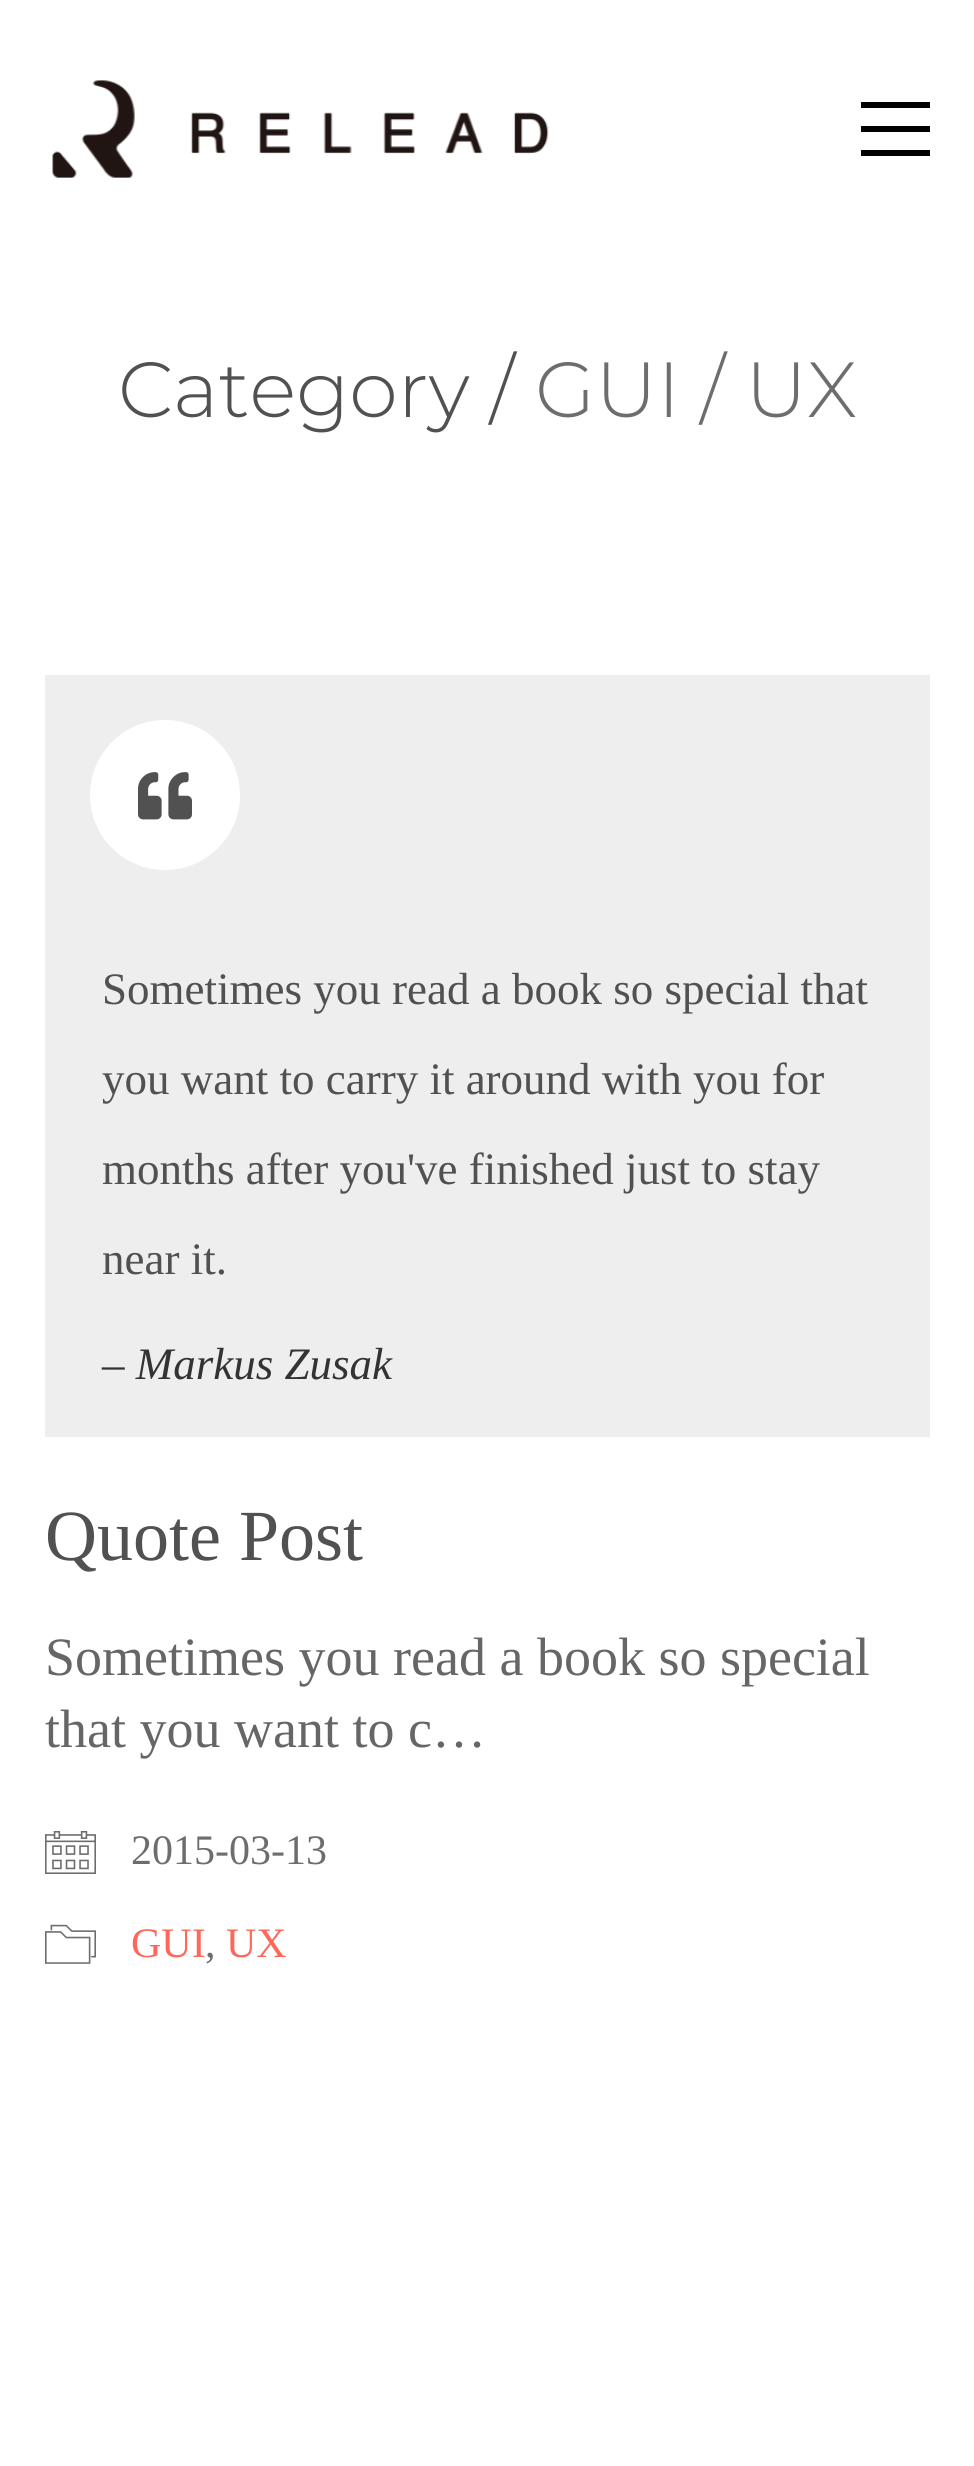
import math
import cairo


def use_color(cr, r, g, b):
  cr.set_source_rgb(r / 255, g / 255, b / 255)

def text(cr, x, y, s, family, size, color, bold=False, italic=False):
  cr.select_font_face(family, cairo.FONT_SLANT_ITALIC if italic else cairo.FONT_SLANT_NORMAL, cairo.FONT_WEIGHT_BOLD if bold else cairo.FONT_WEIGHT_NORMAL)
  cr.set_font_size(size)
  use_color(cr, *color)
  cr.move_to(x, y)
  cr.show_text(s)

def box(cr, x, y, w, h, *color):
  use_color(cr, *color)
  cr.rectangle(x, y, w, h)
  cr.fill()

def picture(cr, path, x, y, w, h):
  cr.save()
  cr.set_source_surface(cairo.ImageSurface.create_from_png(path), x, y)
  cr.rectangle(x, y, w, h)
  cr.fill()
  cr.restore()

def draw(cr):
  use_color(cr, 255, 255, 255)
  cr.paint()
  picture(cr, "img_01.png", 52, 80, 497, 98)
  box(cr, 861, 102, 69, 6, 0, 0, 0)
  box(cr, 861, 126, 69, 6, 0, 0, 0)
  box(cr, 861, 150, 69, 6, 0, 0, 0)
  box(cr, 45, 675, 885, 762, 238, 238, 238)
  use_color(cr, 255, 255, 255)
  cr.arc(165, 795, 75, 0, 2 * math.pi)
  cr.fill()
  picture(cr, "img_02.png", 138, 772, 54, 48)
  picture(cr, "img_03.png", 45, 1831, 51, 43)
  picture(cr, "img_04.png", 45, 1924, 51, 40)
  text(cr, 118, 417, "Category /", "Montserrat Light", 78, (81, 81, 81))
  text(cr, 535, 417, "GUI / UX", "Montserrat Light", 78, (109, 109, 109))
  text(cr, 102, 1004, "Sometimes you read a book so special that", "Liberation Serif", 45, (81, 81, 81))
  text(cr, 102, 1094, "you want to carry it around with you for", "Liberation Serif", 45, (81, 81, 81))
  text(cr, 102, 1184, "months after you've finished just to stay", "Liberation Serif", 45, (81, 81, 81))
  text(cr, 102, 1274, "near it.", "Liberation Serif", 45, (81, 81, 81))
  text(cr, 102, 1379, "– Markus Zusak", "Liberation Serif", 45, (51, 51, 51), italic=True)
  text(cr, 45, 1560, "Quote Post", "Liberation Serif", 72, (81, 81, 81))
  text(cr, 45, 1675, "Sometimes you read a book so special", "Liberation Serif", 54, (102, 102, 102))
  text(cr, 45, 1747, "that you want to c…", "Liberation Serif", 54, (102, 102, 102))
  text(cr, 131, 1864, "2015-03-13", "Liberation Serif", 42, (109, 109, 109))
  text(cr, 131, 1957, "GUI", "Liberation Serif", 42, (255, 103, 91))
  text(cr, 205, 1957, ",", "Liberation Serif", 42, (109, 109, 109))
  text(cr, 226, 1957, "UX", "Liberation Serif", 42, (255, 103, 91))


surface = cairo.ImageSurface(cairo.FORMAT_RGB24, 974, 2466)
cr = cairo.Context(surface)
options = cairo.FontOptions()
options.set_hint_metrics(cairo.HINT_METRICS_OFF)
options.set_hint_style(cairo.HINT_STYLE_NONE)
cr.set_font_options(options)
cr.set_miter_limit(4)
draw(cr)
surface.write_to_png("out.png")
